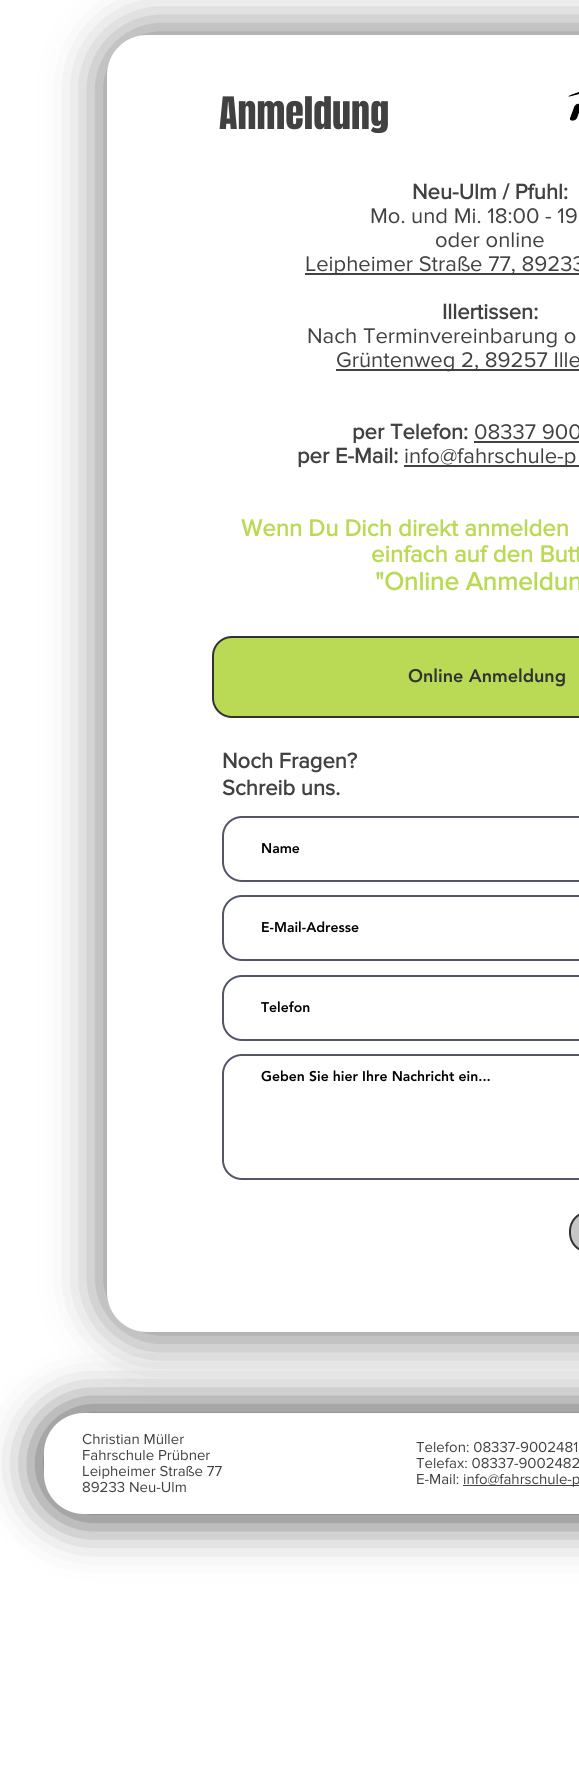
import math
import cairo


def use_color(cr, r, g, b):
  cr.set_source_rgb(r / 255, g / 255, b / 255)

def text(cr, x, y, s, family, size, color, bold=False, italic=False):
  cr.select_font_face(family, cairo.FONT_SLANT_ITALIC if italic else cairo.FONT_SLANT_NORMAL, cairo.FONT_WEIGHT_BOLD if bold else cairo.FONT_WEIGHT_NORMAL)
  cr.set_font_size(size)
  use_color(cr, *color)
  cr.move_to(x, y)
  cr.show_text(s)

def box(cr, x, y, w, h, *color):
  use_color(cr, *color)
  cr.rectangle(x, y, w, h)
  cr.fill()

def round_rect(cr, x, y, w, h, r):
  cr.new_sub_path()
  for i, (u, v) in enumerate([(x + w - r, y + h - r), (x + r, y + h - r), (x + r, y + r), (x + w - r, y + r)]):
    cr.arc(u, v, r, i * math.pi / 2, (i + 1) * math.pi / 2)
  cr.close_path()

def shadow(cr, x, y, w, h, r, blur, alpha):
  cr.push_group_with_content(cairo.CONTENT_ALPHA)
  cr.set_operator(cairo.OPERATOR_SOURCE)
  for i in range(15, -16, -2):
    e = blur * i / 6
    if min(w, h) + 2 * e > 0:
      cr.set_source_rgba(0, 0, 0, alpha * math.erfc((i - 1) / 8.5) / 2)
      round_rect(cr, x - e, y - e, w + 2 * e, h + 2 * e, max(0, min(r + e + blur * .6, min(w, h) / 2 + e)))
      cr.fill()
  cr.mask(cr.pop_group())

def picture(cr, path, x, y, w, h):
  cr.save()
  cr.set_source_surface(cairo.ImageSurface.create_from_png(path), x, y)
  cr.rectangle(x, y, w, h)
  cr.fill()
  cr.restore()

def draw(cr):
  use_color(cr, 255, 255, 255)
  cr.paint()
  use_color(cr, 0, 0, 0)
  shadow(cr, 99, 27, 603, 1313, 48, 25, 0.47)
  use_color(cr, 255, 255, 255)
  round_rect(cr, 107, 35, 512, 1297, 40)
  cr.fill()
  picture(cr, "img_01.png", 568, 92, 11, 29)
  box(cr, 305, 273, 274, 2, 65, 65, 65)
  box(cr, 336, 369, 243, 2, 65, 65, 65)
  box(cr, 474, 441, 105, 2, 65, 65, 65)
  box(cr, 404, 465, 175, 2, 65, 65, 65)
  use_color(cr, 186, 218, 85)
  round_rect(cr, 213, 637, 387, 80, 19)
  cr.fill_preserve()
  use_color(cr, 50, 50, 50)
  cr.stroke()
  round_rect(cr, 223, 817, 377, 64, 19)
  use_color(cr, 83, 86, 102)
  cr.stroke()
  round_rect(cr, 223, 896, 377, 64, 19)
  cr.stroke()
  round_rect(cr, 223, 976, 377, 64, 19)
  cr.stroke()
  round_rect(cr, 223, 1055, 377, 124, 19)
  cr.stroke()
  use_color(cr, 199, 199, 199)
  round_rect(cr, 570, 1212, 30, 40, 19)
  cr.fill_preserve()
  use_color(cr, 50, 50, 50)
  cr.stroke()
  use_color(cr, 0, 0, 0)
  shadow(cr, 39, 1408, 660, 111, 45, 25, 0.7)
  use_color(cr, 255, 255, 255)
  round_rect(cr, 44, 1413, 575, 101, 40)
  cr.fill()
  box(cr, 463, 1485, 116, 1, 65, 65, 65)
  text(cr, 219, 129, "Anmeldung", "Anton", 38, (65, 65, 65))
  text(cr, 412, 199, "Neu-Ulm / Pfuhl:", "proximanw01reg", 22, (65, 65, 65), bold=True)
  text(cr, 370, 223, "Mo. und Mi. 18:00 - 19", "proximanw01reg", 22, (65, 65, 65))
  text(cr, 435, 247, "oder online", "proximanw01reg", 22, (65, 65, 65))
  text(cr, 305, 271, "Leipheimer Straße 77, 89233", "proximanw01reg", 22, (65, 65, 65))
  text(cr, 442, 319, "Illertissen:", "proximanw01reg", 22, (65, 65, 65), bold=True)
  text(cr, 307, 343, "Nach Terminvereinbarung o", "proximanw01reg", 22, (65, 65, 65))
  text(cr, 336, 367, "Grüntenweg 2, 89257 Ille", "proximanw01reg", 22, (65, 65, 65))
  text(cr, 352, 439, "per Telefon:", "proximanw01reg", 22, (65, 65, 65), bold=True)
  text(cr, 474, 439, "08337 900", "proximanw01reg", 22, (65, 65, 65))
  text(cr, 297, 463, "per E-Mail:", "proximanw01reg", 22, (65, 65, 65), bold=True)
  text(cr, 404, 463, "info@fahrschule-p", "proximanw01reg", 22, (65, 65, 65))
  text(cr, 241, 536, "Wenn Du Dich direkt anmelden", "proximanw01reg", 24, (186, 218, 85), bold=True)
  text(cr, 371, 562, "einfach auf den Butt", "proximanw01reg", 24, (186, 218, 85), bold=True)
  text(cr, 375, 590, "\"Online Anmeldun", "proximanw01reg", 26, (186, 218, 85), bold=True)
  text(cr, 408, 682, "Online Anmeldung", "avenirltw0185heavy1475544 Black", 18, (50, 50, 50))
  text(cr, 222, 768, "Noch Fragen?", "proximanw01reg", 22, (65, 65, 65), bold=True)
  text(cr, 222, 795, "Schreib uns.", "proximanw01reg", 22, (65, 65, 65), bold=True)
  text(cr, 261, 853, "Name", "avenirltw0185heavy1475544 Black", 14, (0, 0, 0))
  text(cr, 261, 932, "E-Mail-Adresse", "avenirltw0185heavy1475544 Black", 14, (0, 0, 0))
  text(cr, 261, 1012, "Telefon", "avenirltw0185heavy1475544 Black", 14, (0, 0, 0))
  text(cr, 261, 1081, "Geben Sie hier Ihre Nachricht ein...", "avenirltw0185heavy1475544 Black", 14, (0, 0, 0))
  text(cr, 82, 1444, "Christian Müller", "proximanw01reg", 15, (65, 65, 65))
  text(cr, 82, 1460, "Fahrschule Prübner", "proximanw01reg", 15, (65, 65, 65))
  text(cr, 82, 1476, "Leipheimer Straße 77", "proximanw01reg", 15, (65, 65, 65))
  text(cr, 82, 1492, "89233 Neu-Ulm", "proximanw01reg", 15, (65, 65, 65))
  text(cr, 416, 1452, "Telefon: 08337-9002481", "proximanw01reg", 15, (65, 65, 65))
  text(cr, 416, 1468, "Telefax: 08337-9002482", "proximanw01reg", 15, (65, 65, 65))
  text(cr, 416, 1484, "E-Mail:", "proximanw01reg", 15, (65, 65, 65))
  text(cr, 463, 1484, "info@fahrschule-p", "proximanw01reg", 15, (65, 65, 65))


surface = cairo.ImageSurface(cairo.FORMAT_RGB24, 579, 1767)
cr = cairo.Context(surface)
options = cairo.FontOptions()
options.set_hint_metrics(cairo.HINT_METRICS_OFF)
options.set_hint_style(cairo.HINT_STYLE_NONE)
cr.set_font_options(options)
cr.set_miter_limit(4)
draw(cr)
surface.write_to_png("out.png")
